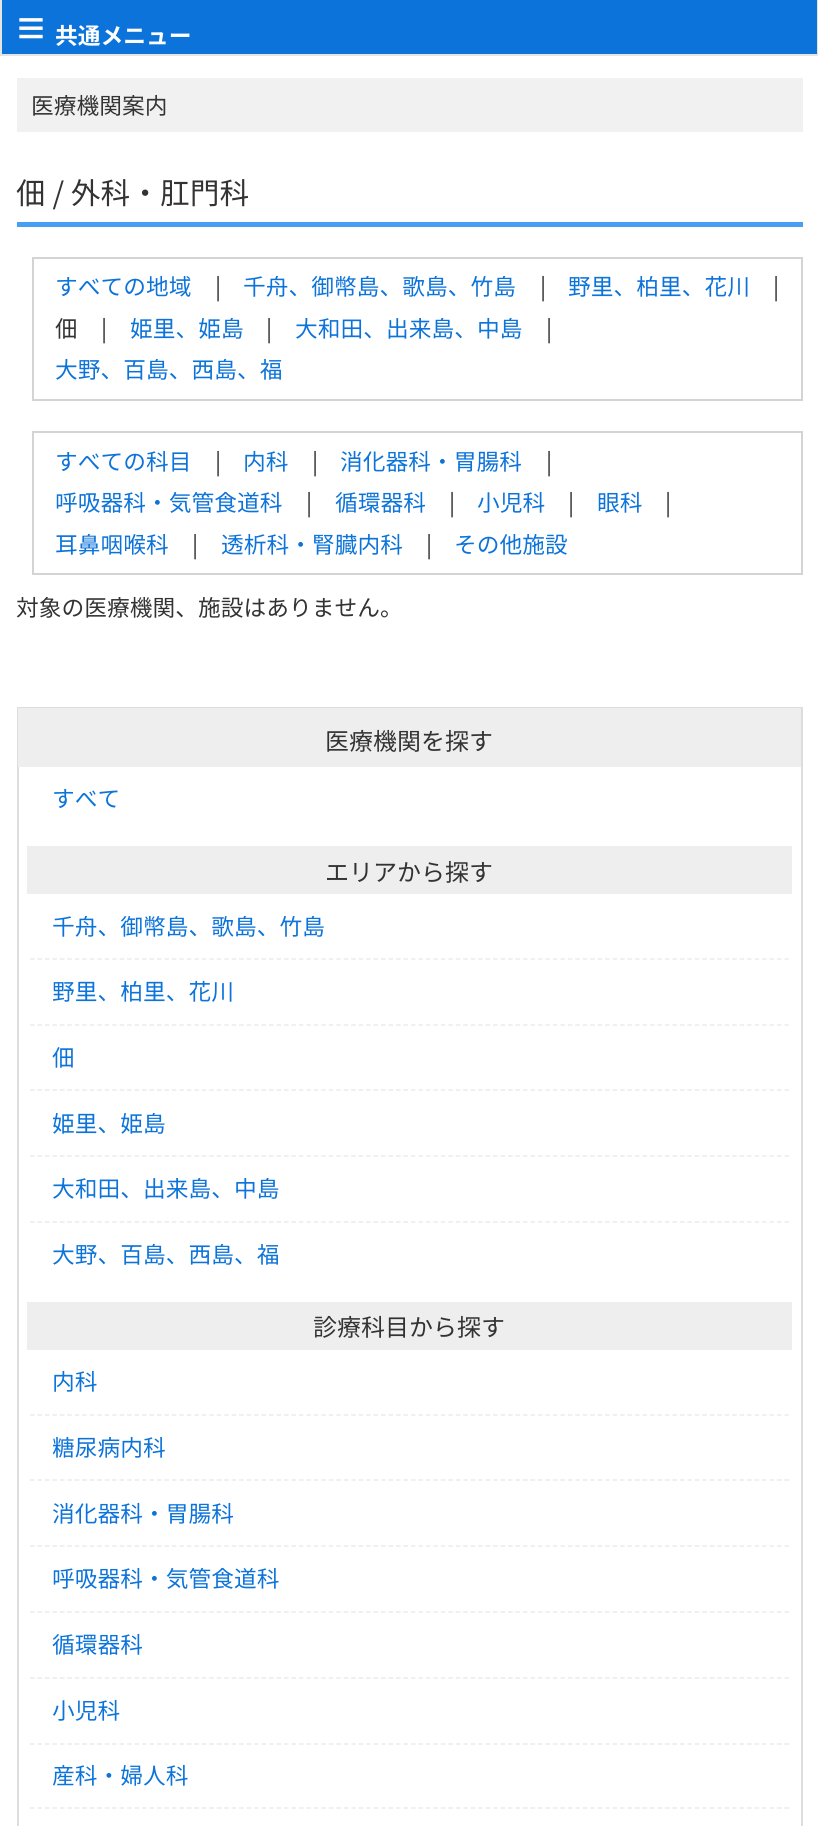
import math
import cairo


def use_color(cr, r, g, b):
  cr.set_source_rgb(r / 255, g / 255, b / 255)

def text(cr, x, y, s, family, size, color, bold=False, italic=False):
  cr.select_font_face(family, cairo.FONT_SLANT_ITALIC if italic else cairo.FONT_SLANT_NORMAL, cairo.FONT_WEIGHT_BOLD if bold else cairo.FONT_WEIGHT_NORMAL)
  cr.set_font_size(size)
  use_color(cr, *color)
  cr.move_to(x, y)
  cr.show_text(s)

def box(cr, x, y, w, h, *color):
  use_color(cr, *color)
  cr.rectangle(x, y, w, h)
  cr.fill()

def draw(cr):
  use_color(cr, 255, 255, 255)
  cr.paint()
  use_color(cr, 12, 115, 218)
  cr.rectangle(1, -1, 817, 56)
  cr.fill_preserve()
  use_color(cr, 228, 228, 228)
  cr.stroke()
  box(cr, 17, 78, 786, 54, 241, 241, 241)
  box(cr, 17, 222, 786, 5, 70, 158, 245)
  cr.rectangle(33, 258, 769, 142)
  use_color(cr, 212, 212, 212)
  cr.stroke()
  cr.rectangle(33, 432, 769, 142)
  cr.stroke()
  cr.rectangle(18, 708, 784, 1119)
  use_color(cr, 221, 221, 221)
  cr.stroke()
  box(cr, 18, 708, 783, 59, 238, 238, 238)
  box(cr, 27, 846, 765, 48, 238, 238, 238)
  cr.new_path()
  cr.move_to(30, 959)
  cr.line_to(789, 959)
  use_color(cr, 235, 235, 235)
  cr.set_line_width(1.5)
  cr.set_dash([4.5, 2.97])
  cr.stroke()
  cr.new_path()
  cr.move_to(30, 1025)
  cr.line_to(789, 1025)
  cr.stroke()
  cr.new_path()
  cr.move_to(30, 1090)
  cr.line_to(789, 1090)
  cr.stroke()
  cr.new_path()
  cr.move_to(30, 1156)
  cr.line_to(789, 1156)
  cr.stroke()
  cr.new_path()
  cr.move_to(30, 1222)
  cr.line_to(789, 1222)
  cr.stroke()
  box(cr, 27, 1302, 765, 48, 238, 238, 238)
  cr.new_path()
  cr.move_to(30, 1415)
  cr.line_to(789, 1415)
  use_color(cr, 235, 235, 235)
  cr.stroke()
  cr.new_path()
  cr.move_to(30, 1480)
  cr.line_to(789, 1480)
  cr.stroke()
  cr.new_path()
  cr.move_to(30, 1546)
  cr.line_to(789, 1546)
  cr.stroke()
  cr.new_path()
  cr.move_to(30, 1612)
  cr.line_to(789, 1612)
  cr.stroke()
  cr.new_path()
  cr.move_to(30, 1678)
  cr.line_to(789, 1678)
  cr.stroke()
  cr.new_path()
  cr.move_to(30, 1744)
  cr.line_to(789, 1744)
  cr.stroke()
  cr.new_path()
  cr.move_to(30, 1808)
  cr.line_to(789, 1808)
  cr.stroke()
  text(cr, 17, 44, "≡", "Liberation Sans", 48, (255, 255, 255), bold=True)
  text(cr, 55, 44, "共通メニュー", "Noto Sans JP", 22.75, (255, 255, 255), bold=True)
  text(cr, 31, 114, "医療機関案内", "Noto Sans JP", 22.75, (51, 51, 51))
  text(cr, 16, 204, "佃 / 外科・肛門科", "Noto Sans JP", 29.75, (51, 51, 51))
  text(cr, 55, 295, "すべての地域", "Noto Sans JP", 22.75, (12, 115, 218))
  text(cr, 215, 295, "|", "Noto Sans JP", 22.75, (51, 51, 51))
  text(cr, 243, 295, "千舟、御幣島、歌島、竹島", "Noto Sans JP", 22.75, (12, 115, 218))
  text(cr, 540, 295, "|", "Noto Sans JP", 22.75, (51, 51, 51))
  text(cr, 568, 295, "野里、柏里、花川", "Noto Sans JP", 22.75, (12, 115, 218))
  text(cr, 773, 295, "|", "Noto Sans JP", 22.75, (51, 51, 51))
  text(cr, 55, 337, "佃", "Noto Sans JP", 22.75, (51, 51, 51))
  text(cr, 101, 337, "|", "Noto Sans JP", 22.75, (51, 51, 51))
  text(cr, 130, 337, "姫里、姫島", "Noto Sans JP", 22.75, (12, 115, 218))
  text(cr, 266, 337, "|", "Noto Sans JP", 22.75, (51, 51, 51))
  text(cr, 295, 337, "大和田、出来島、中島", "Noto Sans JP", 22.75, (12, 115, 218))
  text(cr, 546, 337, "|", "Noto Sans JP", 22.75, (51, 51, 51))
  text(cr, 55, 378, "大野、百島、西島、福", "Noto Sans JP", 22.75, (12, 115, 218))
  text(cr, 55, 470, "すべての科目", "Noto Sans JP", 22.75, (12, 115, 218))
  text(cr, 215, 470, "|", "Noto Sans JP", 22.75, (51, 51, 51))
  text(cr, 243, 470, "内科", "Noto Sans JP", 22.75, (12, 115, 218))
  text(cr, 312, 470, "|", "Noto Sans JP", 22.75, (51, 51, 51))
  text(cr, 340, 470, "消化器科・胃腸科", "Noto Sans JP", 22.75, (12, 115, 218))
  text(cr, 546, 470, "|", "Noto Sans JP", 22.75, (51, 51, 51))
  text(cr, 55, 511, "呼吸器科・気管食道科", "Noto Sans JP", 22.75, (12, 115, 218))
  text(cr, 306, 511, "|", "Noto Sans JP", 22.75, (51, 51, 51))
  text(cr, 335, 511, "循環器科", "Noto Sans JP", 22.75, (12, 115, 218))
  text(cr, 449, 511, "|", "Noto Sans JP", 22.75, (51, 51, 51))
  text(cr, 477, 511, "小児科", "Noto Sans JP", 22.75, (12, 115, 218))
  text(cr, 568, 511, "|", "Noto Sans JP", 22.75, (51, 51, 51))
  text(cr, 597, 511, "眼科", "Noto Sans JP", 22.75, (12, 115, 218))
  text(cr, 665, 511, "|", "Noto Sans JP", 22.75, (51, 51, 51))
  text(cr, 55, 553, "耳鼻咽喉科", "Noto Sans JP", 22.75, (12, 115, 218))
  text(cr, 192, 553, "|", "Noto Sans JP", 22.75, (51, 51, 51))
  text(cr, 221, 553, "透析科・腎臓内科", "Noto Sans JP", 22.75, (12, 115, 218))
  text(cr, 426, 553, "|", "Noto Sans JP", 22.75, (51, 51, 51))
  text(cr, 454, 553, "その他施設", "Noto Sans JP", 22.75, (12, 115, 218))
  text(cr, 16, 616, "対象の医療機関、施設はありません。", "Noto Sans JP", 22.75, (51, 51, 51))
  text(cr, 325, 750, "医療機関を探す", "Noto Sans JP", 24, (51, 51, 51))
  text(cr, 52, 807, "すべて", "Noto Sans JP", 22.75, (12, 115, 218))
  text(cr, 325, 881, "エリアから探す", "Noto Sans JP", 24, (51, 51, 51))
  text(cr, 52, 935, "千舟、御幣島、歌島、竹島", "Noto Sans JP", 22.75, (12, 115, 218))
  text(cr, 52, 1000, "野里、柏里、花川", "Noto Sans JP", 22.75, (12, 115, 218))
  text(cr, 52, 1066, "佃", "Noto Sans JP", 22.75, (12, 115, 218))
  text(cr, 52, 1132, "姫里、姫島", "Noto Sans JP", 22.75, (12, 115, 218))
  text(cr, 52, 1197, "大和田、出来島、中島", "Noto Sans JP", 22.75, (12, 115, 218))
  text(cr, 52, 1263, "大野、百島、西島、福", "Noto Sans JP", 22.75, (12, 115, 218))
  text(cr, 313, 1336, "診療科目から探す", "Noto Sans JP", 24, (51, 51, 51))
  text(cr, 52, 1390, "内科", "Noto Sans JP", 22.75, (12, 115, 218))
  text(cr, 52, 1456, "糖尿病内科", "Noto Sans JP", 22.75, (12, 115, 218))
  text(cr, 52, 1522, "消化器科・胃腸科", "Noto Sans JP", 22.75, (12, 115, 218))
  text(cr, 52, 1587, "呼吸器科・気管食道科", "Noto Sans JP", 22.75, (12, 115, 218))
  text(cr, 52, 1653, "循環器科", "Noto Sans JP", 22.75, (12, 115, 218))
  text(cr, 52, 1719, "小児科", "Noto Sans JP", 22.75, (12, 115, 218))
  text(cr, 52, 1784, "産科・婦人科", "Noto Sans JP", 22.75, (12, 115, 218))


surface = cairo.ImageSurface(cairo.FORMAT_RGB24, 818, 1826)
cr = cairo.Context(surface)
options = cairo.FontOptions()
options.set_hint_metrics(cairo.HINT_METRICS_OFF)
options.set_hint_style(cairo.HINT_STYLE_NONE)
cr.set_font_options(options)
cr.set_miter_limit(4)
draw(cr)
surface.write_to_png("out.png")
